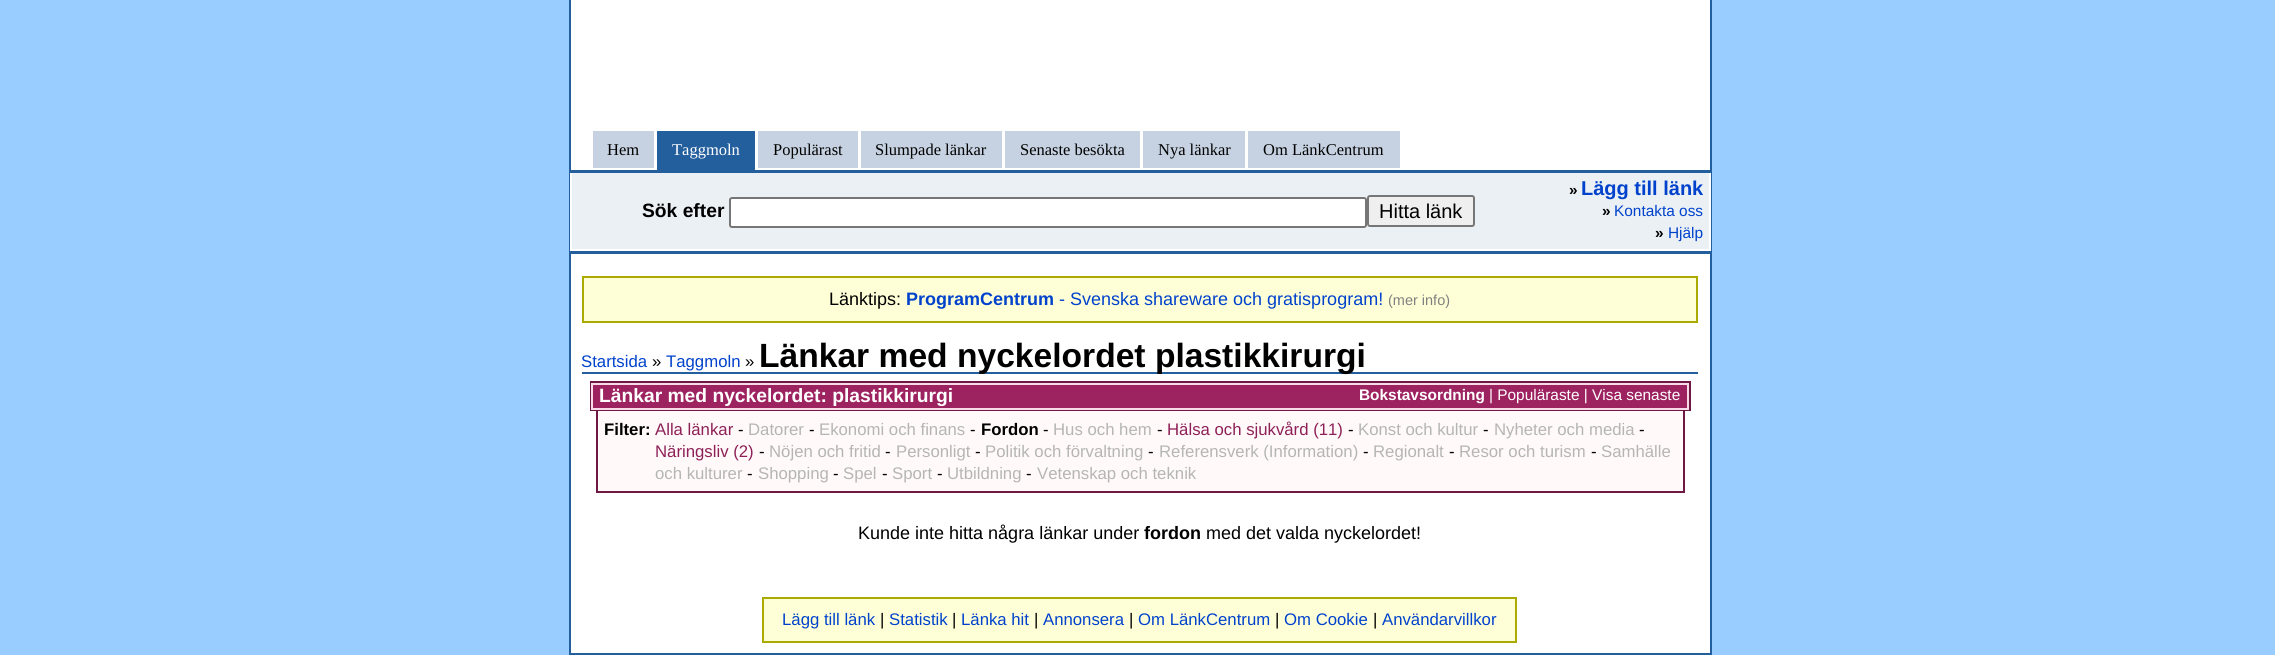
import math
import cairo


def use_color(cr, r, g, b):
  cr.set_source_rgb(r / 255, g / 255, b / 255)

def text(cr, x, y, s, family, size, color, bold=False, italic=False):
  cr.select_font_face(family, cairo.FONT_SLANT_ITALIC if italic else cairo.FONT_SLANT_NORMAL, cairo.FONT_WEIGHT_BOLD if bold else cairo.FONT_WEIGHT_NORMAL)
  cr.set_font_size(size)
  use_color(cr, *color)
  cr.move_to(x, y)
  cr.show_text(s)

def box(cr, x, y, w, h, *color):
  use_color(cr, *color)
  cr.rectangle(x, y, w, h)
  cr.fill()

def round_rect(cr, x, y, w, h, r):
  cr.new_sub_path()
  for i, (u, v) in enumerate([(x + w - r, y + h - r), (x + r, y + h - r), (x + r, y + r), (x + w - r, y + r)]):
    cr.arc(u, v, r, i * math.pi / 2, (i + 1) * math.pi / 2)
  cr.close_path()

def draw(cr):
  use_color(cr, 153, 204, 255)
  cr.paint()
  box(cr, 571, 0, 1139, 653, 255, 255, 255)
  box(cr, 1710, 0, 2, 655, 35, 94, 157)
  box(cr, 569, 0, 2, 655, 35, 94, 157)
  box(cr, 593, 131, 61, 37, 198, 210, 225)
  box(cr, 657, 131, 98, 39, 35, 94, 157)
  box(cr, 758, 131, 100, 37, 198, 210, 225)
  box(cr, 861, 131, 141, 37, 198, 210, 225)
  box(cr, 1005, 131, 135, 37, 198, 210, 225)
  box(cr, 1143, 131, 102, 37, 198, 210, 225)
  box(cr, 1248, 131, 152, 37, 198, 210, 225)
  box(cr, 570, 170, 1140, 3, 35, 94, 157)
  box(cr, 570, 251, 1140, 3, 35, 94, 157)
  box(cr, 572, 173, 1137, 76, 235, 240, 245)
  box(cr, 1710, 173, 1, 78, 255, 255, 255)
  box(cr, 570, 173, 1, 78, 255, 255, 255)
  round_rect(cr, 730, 198, 636, 29, 2)
  cr.fill_preserve()
  use_color(cr, 118, 118, 118)
  cr.stroke()
  use_color(cr, 239, 239, 239)
  round_rect(cr, 1368, 196, 106, 30, 2)
  cr.fill_preserve()
  use_color(cr, 118, 118, 118)
  cr.stroke()
  use_color(cr, 255, 255, 215)
  cr.rectangle(583, 277, 1114, 45)
  cr.fill_preserve()
  use_color(cr, 170, 170, 0)
  cr.stroke()
  box(cr, 582, 372, 1116, 2, 35, 94, 157)
  box(cr, 593, 385, 1094, 23, 157, 35, 96)
  cr.rectangle(591, 382, 1099, 28)
  use_color(cr, 112, 24, 68)
  cr.stroke()
  cr.rectangle(592, 384, 1096, 25)
  use_color(cr, 247, 219, 233)
  cr.stroke()
  box(cr, 598, 411, 1085, 80, 255, 249, 249)
  box(cr, 1683, 411, 2, 81, 112, 24, 68)
  box(cr, 596, 491, 1089, 2, 112, 24, 68)
  box(cr, 596, 411, 2, 81, 112, 24, 68)
  box(cr, 764, 599, 751, 42, 255, 255, 215)
  box(cr, 762, 641, 620, 2, 170, 170, 0)
  box(cr, 762, 597, 755, 2, 170, 170, 0)
  box(cr, 762, 597, 2, 45, 170, 170, 0)
  box(cr, 1515, 597, 2, 45, 170, 170, 0)
  box(cr, 1382, 641, 135, 2, 170, 170, 0)
  box(cr, 570, 653, 1140, 2, 35, 94, 157)
  text(cr, 607, 155, "Hem", "Liberation Serif", 16.5, (0, 0, 0))
  text(cr, 672, 155, "Taggmoln", "Liberation Serif", 16.5, (255, 255, 255))
  text(cr, 773, 155, "Populärast", "Liberation Serif", 16.5, (0, 0, 0))
  text(cr, 875, 155, "Slumpade länkar", "Liberation Serif", 16.5, (0, 0, 0))
  text(cr, 1020, 155, "Senaste besökta", "Liberation Serif", 16.5, (0, 0, 0))
  text(cr, 1158, 155, "Nya länkar", "Liberation Serif", 16.5, (0, 0, 0))
  text(cr, 1263, 155, "Om LänkCentrum", "Liberation Serif", 16.5, (0, 0, 0))
  text(cr, 642, 217, "Sök efter", "Liberation Sans", 19.25, (0, 0, 0), bold=True)
  text(cr, 1379, 218, "Hitta länk", "Liberation Sans", 20, (0, 0, 0))
  text(cr, 1569, 195, "»", "Liberation Sans", 15.4, (0, 0, 0), bold=True)
  text(cr, 1581, 195, "Lägg till länk", "Liberation Sans", 20, (0, 66, 204), bold=True)
  text(cr, 1602, 216, "»", "Liberation Sans", 15.4, (0, 0, 0), bold=True)
  text(cr, 1614, 216, "Kontakta oss", "Liberation Sans", 15.4, (0, 66, 204))
  text(cr, 1655, 238, "»", "Liberation Sans", 15.4, (0, 0, 0), bold=True)
  text(cr, 1668, 238, "Hjälp", "Liberation Sans", 15.4, (0, 66, 204))
  text(cr, 829, 305, "Länktips:", "Liberation Sans", 18, (0, 0, 0))
  text(cr, 906, 305, "ProgramCentrum", "Liberation Sans", 18, (0, 66, 204), bold=True)
  text(cr, 1059, 305, "- Svenska shareware och gratisprogram!", "Liberation Sans", 18, (0, 66, 204))
  text(cr, 1388, 305, "(mer info)", "Liberation Sans", 14.5, (128, 128, 128))
  text(cr, 581, 367, "Startsida", "Liberation Sans", 16.75, (0, 66, 204))
  text(cr, 652, 367, "»", "Liberation Sans", 16.75, (0, 0, 0))
  text(cr, 666, 367, "Taggmoln", "Liberation Sans", 16.75, (0, 66, 204))
  text(cr, 745, 367, "»", "Liberation Sans", 16.75, (0, 0, 0))
  text(cr, 759, 367, "Länkar med nyckelordet plastikkirurgi", "Liberation Sans", 33.6, (0, 0, 0), bold=True)
  text(cr, 599, 402, "Länkar med nyckelordet: plastikkirurgi", "Liberation Sans", 19.25, (255, 255, 255), bold=True)
  text(cr, 1359, 400, "Bokstavsordning", "Liberation Sans", 15.4, (255, 255, 255), bold=True)
  text(cr, 1489, 400, "| Populäraste | Visa senaste", "Liberation Sans", 15.4, (255, 255, 255))
  text(cr, 604, 435, "Filter:", "Liberation Sans", 16.75, (0, 0, 0), bold=True)
  text(cr, 655, 435, "Alla länkar", "Liberation Sans", 16.75, (142, 32, 87))
  text(cr, 738, 435, "-", "Liberation Sans", 16.75, (0, 0, 0))
  text(cr, 748, 435, "Datorer", "Liberation Sans", 16.75, (181, 181, 181))
  text(cr, 809, 435, "-", "Liberation Sans", 16.75, (0, 0, 0))
  text(cr, 819, 435, "Ekonomi och finans", "Liberation Sans", 16.75, (181, 181, 181))
  text(cr, 970, 435, "-", "Liberation Sans", 16.75, (0, 0, 0))
  text(cr, 981, 435, "Fordon", "Liberation Sans", 16.75, (0, 0, 0), bold=True)
  text(cr, 1043, 435, "-", "Liberation Sans", 16.75, (0, 0, 0))
  text(cr, 1053, 435, "Hus och hem", "Liberation Sans", 16.75, (181, 181, 181))
  text(cr, 1157, 435, "-", "Liberation Sans", 16.75, (0, 0, 0))
  text(cr, 1167, 435, "Hälsa och sjukvård (11)", "Liberation Sans", 16.75, (142, 32, 87))
  text(cr, 1348, 435, "-", "Liberation Sans", 16.75, (0, 0, 0))
  text(cr, 1358, 435, "Konst och kultur", "Liberation Sans", 16.75, (181, 181, 181))
  text(cr, 1483, 435, "-", "Liberation Sans", 16.75, (0, 0, 0))
  text(cr, 1494, 435, "Nyheter och media", "Liberation Sans", 16.75, (181, 181, 181))
  text(cr, 1639, 435, "-", "Liberation Sans", 16.75, (0, 0, 0))
  text(cr, 655, 457, "Näringsliv (2)", "Liberation Sans", 16.75, (142, 32, 87))
  text(cr, 759, 457, "-", "Liberation Sans", 16.75, (0, 0, 0))
  text(cr, 769, 457, "Nöjen och fritid", "Liberation Sans", 16.75, (181, 181, 181))
  text(cr, 885, 457, "-", "Liberation Sans", 16.75, (0, 0, 0))
  text(cr, 896, 457, "Personligt", "Liberation Sans", 16.75, (181, 181, 181))
  text(cr, 975, 457, "-", "Liberation Sans", 16.75, (0, 0, 0))
  text(cr, 985, 457, "Politik och förvaltning", "Liberation Sans", 16.75, (181, 181, 181))
  text(cr, 1148, 457, "-", "Liberation Sans", 16.75, (0, 0, 0))
  text(cr, 1159, 457, "Referensverk (Information)", "Liberation Sans", 16.75, (181, 181, 181))
  text(cr, 1363, 457, "-", "Liberation Sans", 16.75, (0, 0, 0))
  text(cr, 1373, 457, "Regionalt", "Liberation Sans", 16.75, (181, 181, 181))
  text(cr, 1449, 457, "-", "Liberation Sans", 16.75, (0, 0, 0))
  text(cr, 1459, 457, "Resor och turism", "Liberation Sans", 16.75, (181, 181, 181))
  text(cr, 1591, 457, "-", "Liberation Sans", 16.75, (0, 0, 0))
  text(cr, 1601, 457, "Samhälle", "Liberation Sans", 16.75, (181, 181, 181))
  text(cr, 655, 479, "och kulturer", "Liberation Sans", 16.75, (181, 181, 181))
  text(cr, 747, 479, "-", "Liberation Sans", 16.75, (0, 0, 0))
  text(cr, 758, 479, "Shopping", "Liberation Sans", 16.75, (181, 181, 181))
  text(cr, 833, 479, "-", "Liberation Sans", 16.75, (0, 0, 0))
  text(cr, 843, 479, "Spel", "Liberation Sans", 16.75, (181, 181, 181))
  text(cr, 882, 479, "-", "Liberation Sans", 16.75, (0, 0, 0))
  text(cr, 892, 479, "Sport", "Liberation Sans", 16.75, (181, 181, 181))
  text(cr, 937, 479, "-", "Liberation Sans", 16.75, (0, 0, 0))
  text(cr, 947, 479, "Utbildning", "Liberation Sans", 16.75, (181, 181, 181))
  text(cr, 1026, 479, "-", "Liberation Sans", 16.75, (0, 0, 0))
  text(cr, 1037, 479, "Vetenskap och teknik", "Liberation Sans", 16.75, (181, 181, 181))
  text(cr, 858, 539, "Kunde inte hitta några länkar under", "Liberation Sans", 18, (0, 0, 0))
  text(cr, 1144, 539, "fordon", "Liberation Sans", 18, (0, 0, 0), bold=True)
  text(cr, 1206, 539, "med det valda nyckelordet!", "Liberation Sans", 18, (0, 0, 0))
  text(cr, 782, 625, "Lägg till länk", "Liberation Sans", 16.75, (0, 66, 204))
  text(cr, 880, 625, "|", "Liberation Sans", 16.75, (0, 0, 0))
  text(cr, 889, 625, "Statistik", "Liberation Sans", 16.75, (0, 66, 204))
  text(cr, 952, 625, "|", "Liberation Sans", 16.75, (0, 0, 0))
  text(cr, 961, 625, "Länka hit", "Liberation Sans", 16.75, (0, 66, 204))
  text(cr, 1034, 625, "|", "Liberation Sans", 16.75, (0, 0, 0))
  text(cr, 1043, 625, "Annonsera", "Liberation Sans", 16.75, (0, 66, 204))
  text(cr, 1129, 625, "|", "Liberation Sans", 16.75, (0, 0, 0))
  text(cr, 1138, 625, "Om LänkCentrum", "Liberation Sans", 16.75, (0, 66, 204))
  text(cr, 1275, 625, "|", "Liberation Sans", 16.75, (0, 0, 0))
  text(cr, 1284, 625, "Om Cookie", "Liberation Sans", 16.75, (0, 66, 204))
  text(cr, 1373, 625, "|", "Liberation Sans", 16.75, (0, 0, 0))
  text(cr, 1382, 625, "Användarvillkor", "Liberation Sans", 16.75, (0, 66, 204))


surface = cairo.ImageSurface(cairo.FORMAT_RGB24, 2275, 655)
cr = cairo.Context(surface)
options = cairo.FontOptions()
options.set_hint_metrics(cairo.HINT_METRICS_OFF)
options.set_hint_style(cairo.HINT_STYLE_NONE)
cr.set_font_options(options)
cr.set_miter_limit(4)
draw(cr)
surface.write_to_png("out.png")
